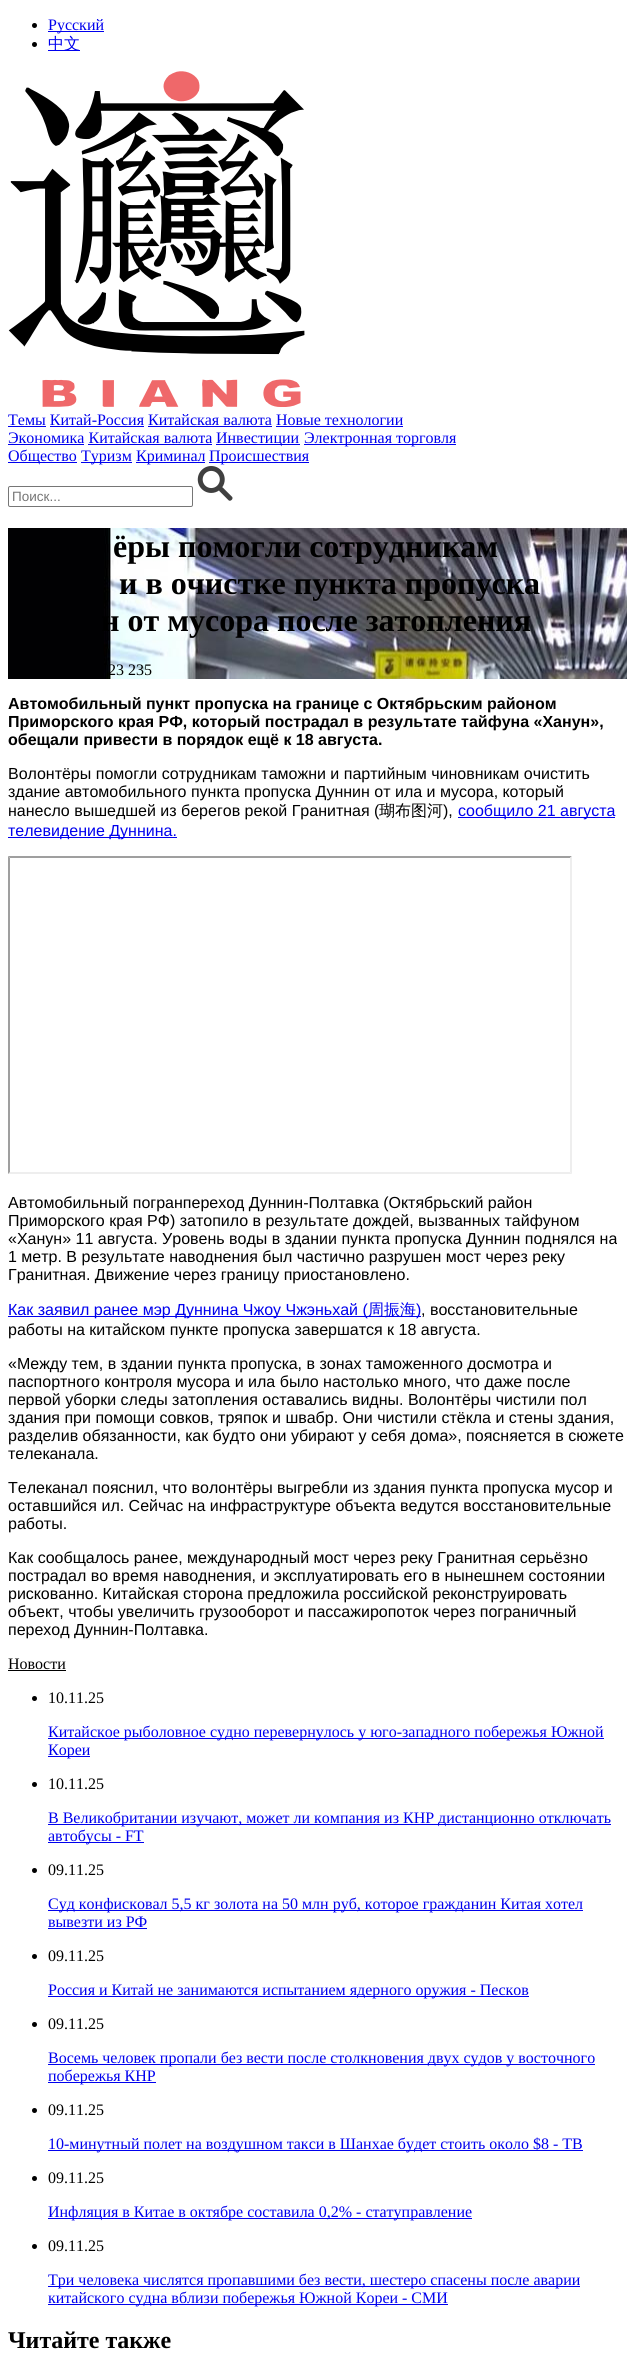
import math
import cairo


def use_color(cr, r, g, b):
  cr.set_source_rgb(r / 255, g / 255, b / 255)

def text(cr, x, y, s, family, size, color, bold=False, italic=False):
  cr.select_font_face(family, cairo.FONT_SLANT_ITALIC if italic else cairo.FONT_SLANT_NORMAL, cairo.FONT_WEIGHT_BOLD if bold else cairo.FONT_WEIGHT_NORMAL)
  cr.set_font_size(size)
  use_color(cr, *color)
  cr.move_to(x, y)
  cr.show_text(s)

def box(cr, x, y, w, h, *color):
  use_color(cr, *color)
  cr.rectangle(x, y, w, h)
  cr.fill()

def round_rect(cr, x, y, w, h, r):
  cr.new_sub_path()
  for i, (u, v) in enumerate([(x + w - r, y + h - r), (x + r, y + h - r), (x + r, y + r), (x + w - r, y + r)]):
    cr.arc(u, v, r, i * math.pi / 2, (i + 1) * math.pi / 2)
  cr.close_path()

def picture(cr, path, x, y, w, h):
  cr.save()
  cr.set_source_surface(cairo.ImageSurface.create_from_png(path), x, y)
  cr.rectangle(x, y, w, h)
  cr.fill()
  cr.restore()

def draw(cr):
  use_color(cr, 255, 255, 255)
  cr.paint()
  use_color(cr, 0, 0, 0)
  cr.arc(34.5, 25.5, 2.5, 0, 2 * math.pi)
  cr.fill()
  box(cr, 48, 31, 56, 1, 0, 0, 238)
  use_color(cr, 0, 0, 0)
  cr.arc(34.5, 44.5, 2.5, 0, 2 * math.pi)
  cr.fill()
  box(cr, 48, 50, 32, 1, 0, 0, 238)
  picture(cr, "img_01.png", 8, 71, 297, 336)
  box(cr, 8, 426, 38, 1, 0, 0, 238)
  box(cr, 50, 426, 94, 1, 0, 0, 238)
  box(cr, 148, 426, 124, 1, 0, 0, 238)
  box(cr, 276, 426, 127, 1, 0, 0, 238)
  box(cr, 8, 444, 76, 1, 0, 0, 238)
  box(cr, 216, 444, 84, 1, 0, 0, 238)
  box(cr, 304, 444, 152, 1, 0, 0, 238)
  box(cr, 88, 444, 124, 1, 0, 0, 238)
  box(cr, 8, 462, 69, 1, 0, 0, 238)
  box(cr, 81, 462, 51, 1, 0, 0, 238)
  box(cr, 136, 462, 69, 1, 0, 0, 238)
  box(cr, 209, 462, 100, 1, 0, 0, 238)
  round_rect(cr, 8.5, 486.5, 184, 20, 1.5)
  use_color(cr, 118, 118, 118)
  cr.set_line_width(1)
  cr.stroke()
  picture(cr, "img_02.png", 197, 466, 36, 35)
  picture(cr, "img_03.png", 8, 528, 619, 151)
  box(cr, 458, 817, 157, 1, 0, 0, 238)
  box(cr, 8, 837, 169, 1, 0, 0, 238)
  use_color(cr, 159, 159, 159)
  cr.new_path()
  cr.move_to(8, 856)
  cr.line_to(572, 856)
  cr.line_to(570, 858)
  cr.line_to(10, 858)
  cr.close_path()
  cr.fill()
  use_color(cr, 238, 238, 238)
  cr.new_path()
  cr.move_to(572, 856)
  cr.line_to(572, 1174)
  cr.line_to(570, 1172)
  cr.line_to(570, 858)
  cr.close_path()
  cr.fill()
  cr.new_path()
  cr.move_to(572, 1174)
  cr.line_to(8, 1174)
  cr.line_to(10, 1172)
  cr.line_to(570, 1172)
  cr.close_path()
  cr.fill()
  use_color(cr, 159, 159, 159)
  cr.new_path()
  cr.move_to(8, 1174)
  cr.line_to(8, 856)
  cr.line_to(10, 858)
  cr.line_to(10, 1172)
  cr.close_path()
  cr.fill()
  box(cr, 8, 1316, 413, 1, 0, 0, 238)
  box(cr, 8, 1670, 58, 1, 0, 0, 0)
  cr.arc(34.5, 1698.5, 2.5, 0, 2 * math.pi)
  cr.fill()
  box(cr, 48, 1738, 556, 1, 0, 0, 238)
  box(cr, 48, 1756, 42, 1, 0, 0, 238)
  use_color(cr, 0, 0, 0)
  cr.arc(34.5, 1784.5, 2.5, 0, 2 * math.pi)
  cr.fill()
  box(cr, 48, 1824, 563, 1, 0, 0, 238)
  box(cr, 48, 1842, 96, 1, 0, 0, 238)
  use_color(cr, 0, 0, 0)
  cr.arc(34.5, 1870.5, 2.5, 0, 2 * math.pi)
  cr.fill()
  box(cr, 48, 1910, 535, 1, 0, 0, 238)
  box(cr, 48, 1928, 99, 1, 0, 0, 238)
  use_color(cr, 0, 0, 0)
  cr.arc(34.5, 1956.5, 2.5, 0, 2 * math.pi)
  cr.fill()
  box(cr, 48, 1996, 481, 1, 0, 0, 238)
  use_color(cr, 0, 0, 0)
  cr.arc(34.5, 2024.5, 2.5, 0, 2 * math.pi)
  cr.fill()
  box(cr, 48, 2064, 547, 1, 0, 0, 238)
  box(cr, 48, 2082, 108, 1, 0, 0, 238)
  use_color(cr, 0, 0, 0)
  cr.arc(34.5, 2110.5, 2.5, 0, 2 * math.pi)
  cr.fill()
  box(cr, 48, 2150, 535, 1, 0, 0, 238)
  use_color(cr, 0, 0, 0)
  cr.arc(34.5, 2178.5, 2.5, 0, 2 * math.pi)
  cr.fill()
  box(cr, 48, 2218, 424, 1, 0, 0, 238)
  use_color(cr, 0, 0, 0)
  cr.arc(34.5, 2246.5, 2.5, 0, 2 * math.pi)
  cr.fill()
  box(cr, 48, 2286, 532, 1, 0, 0, 238)
  box(cr, 48, 2304, 400, 1, 0, 0, 238)
  text(cr, 48, 30, "Русский", "Liberation Serif", 16, (0, 0, 238))
  text(cr, 48, 49, "中文", "WenQuanYi Zen Hei Medium", 16, (0, 0, 238))
  text(cr, 8, 425, "Темы Китай-Россия Китайская валюта Новые технологии", "Liberation Serif", 16, (0, 0, 238))
  text(cr, 8, 443, "Экономика Китайская валюта", "Liberation Serif", 16, (0, 0, 238))
  text(cr, 216, 443, "Инвестиции", "Liberation Serif", 16, (0, 0, 238))
  text(cr, 304, 443, "Электронная торговля", "Liberation Serif", 16, (0, 0, 238))
  text(cr, 8, 461, "Общество", "Liberation Serif", 16, (0, 0, 238))
  text(cr, 81, 461, "Туризм", "Liberation Serif", 16, (0, 0, 238))
  text(cr, 136, 461, "Криминал", "Liberation Serif", 16, (0, 0, 238))
  text(cr, 209, 461, "Происшествия", "Liberation Serif", 16, (0, 0, 238))
  text(cr, 12, 501, "Поиск...", "Liberation Sans", 13.5, (117, 117, 117))
  text(cr, 113, 557, "ёры помогли сотрудникам", "Liberation Serif", 32, (0, 0, 0), bold=True)
  text(cr, 119, 594, "и в очистке пункта пропуска", "Liberation Serif", 32, (0, 0, 0), bold=True)
  text(cr, 101, 631, "н от мусора после затопления", "Liberation Serif", 32, (0, 0, 0), bold=True)
  text(cr, 108, 675, "23 235", "Liberation Serif", 16, (0, 0, 0))
  text(cr, 8, 709, "Автомобильный пункт пропуска на границе с Октябрьским районом", "Liberation Sans", 16, (0, 0, 0), bold=True)
  text(cr, 8, 727, "Приморского края РФ, который пострадал в результате тайфуна «Ханун»,", "Liberation Sans", 16, (0, 0, 0), bold=True)
  text(cr, 8, 745, "обещали привести в порядок ещё к 18 августа.", "Liberation Sans", 16, (0, 0, 0), bold=True)
  text(cr, 8, 779, "Волонтёры помогли сотрудникам таможни и партийным чиновникам очистить", "Liberation Sans", 16, (0, 0, 0))
  text(cr, 8, 797, "здание автомобильного пункта пропуска Дуннин от ила и мусора, который", "Liberation Sans", 16, (0, 0, 0))
  text(cr, 8, 816, "нанесло вышедшей из берегов рекой Гранитная (", "Liberation Sans", 16, (0, 0, 0))
  text(cr, 379, 816, "瑚布图河", "WenQuanYi Zen Hei Medium", 16, (0, 0, 0))
  text(cr, 443, 816, "),", "Liberation Sans", 16, (0, 0, 0))
  text(cr, 458, 816, "сообщило 21 августа", "Liberation Sans", 16, (0, 0, 238))
  text(cr, 8, 836, "телевидение Дуннина.", "Liberation Sans", 16, (0, 0, 238))
  text(cr, 8, 1208, "Автомобильный погранпереход Дуннин-Полтавка (Октябрьский район", "Liberation Sans", 16, (0, 0, 0))
  text(cr, 8, 1226, "Приморского края РФ) затопило в результате дождей, вызванных тайфуном", "Liberation Sans", 16, (0, 0, 0))
  text(cr, 8, 1244, "«Ханун» 11 августа. Уровень воды в здании пункта пропуска Дуннин поднялся на", "Liberation Sans", 16, (0, 0, 0))
  text(cr, 8, 1262, "1 метр. В результате наводнения был частично разрушен мост через реку", "Liberation Sans", 16, (0, 0, 0))
  text(cr, 8, 1280, "Гранитная. Движение через границу приостановлено.", "Liberation Sans", 16, (0, 0, 0))
  text(cr, 8, 1315, "Как заявил ранее мэр Дуннина Чжоу Чжэньхай (", "Liberation Sans", 16, (0, 0, 238))
  text(cr, 368, 1315, "周振海", "WenQuanYi Zen Hei Medium", 16, (0, 0, 238))
  text(cr, 416, 1315, ")", "Liberation Sans", 16, (0, 0, 238))
  text(cr, 421, 1315, ", восстановительные", "Liberation Sans", 16, (0, 0, 0))
  text(cr, 8, 1335, "работы на китайском пункте пропуска завершатся к 18 августа.", "Liberation Sans", 16, (0, 0, 0))
  text(cr, 8, 1369, "«Между тем, в здании пункта пропуска, в зонах таможенного досмотра и", "Liberation Sans", 16, (0, 0, 0))
  text(cr, 8, 1387, "паспортного контроля мусора и ила было настолько много, что даже после", "Liberation Sans", 16, (0, 0, 0))
  text(cr, 8, 1405, "первой уборки следы затопления оставались видны. Волонтёры чистили пол", "Liberation Sans", 16, (0, 0, 0))
  text(cr, 8, 1423, "здания при помощи совков, тряпок и швабр. Они чистили стёкла и стены здания,", "Liberation Sans", 16, (0, 0, 0))
  text(cr, 8, 1441, "разделив обязанности, как будто они убирают у себя дома», поясняется в сюжете", "Liberation Sans", 16, (0, 0, 0))
  text(cr, 8, 1459, "телеканала.", "Liberation Sans", 16, (0, 0, 0))
  text(cr, 8, 1493, "Телеканал пояснил, что волонтёры выгребли из здания пункта пропуска мусор и", "Liberation Sans", 16, (0, 0, 0))
  text(cr, 8, 1511, "оставшийся ил. Сейчас на инфраструктуре объекта ведутся восстановительные", "Liberation Sans", 16, (0, 0, 0))
  text(cr, 8, 1529, "работы.", "Liberation Sans", 16, (0, 0, 0))
  text(cr, 8, 1563, "Как сообщалось ранее, международный мост через реку Гранитная серьёзно", "Liberation Sans", 16, (0, 0, 0))
  text(cr, 8, 1581, "пострадал во время наводнения, и эксплуатировать его в нынешнем состоянии", "Liberation Sans", 16, (0, 0, 0))
  text(cr, 8, 1599, "рискованно. Китайская сторона предложила российской реконструировать", "Liberation Sans", 16, (0, 0, 0))
  text(cr, 8, 1617, "объект, чтобы увеличить грузооборот и пассажиропоток через пограничный", "Liberation Sans", 16, (0, 0, 0))
  text(cr, 8, 1635, "переход Дуннин-Полтавка.", "Liberation Sans", 16, (0, 0, 0))
  text(cr, 8, 1669, "Новости", "Liberation Serif", 16, (0, 0, 0))
  text(cr, 48, 1703, "10.11.25", "Liberation Serif", 16, (0, 0, 0))
  text(cr, 48, 1737, "Китайское рыболовное судно перевернулось у юго-западного побережья Южной", "Liberation Serif", 16, (0, 0, 238))
  text(cr, 48, 1755, "Кореи", "Liberation Serif", 16, (0, 0, 238))
  text(cr, 48, 1789, "10.11.25", "Liberation Serif", 16, (0, 0, 0))
  text(cr, 48, 1823, "В Великобритании изучают, может ли компания из КНР дистанционно отключать", "Liberation Serif", 16, (0, 0, 238))
  text(cr, 48, 1841, "автобусы - FT", "Liberation Serif", 16, (0, 0, 238))
  text(cr, 48, 1875, "09.11.25", "Liberation Serif", 16, (0, 0, 0))
  text(cr, 48, 1909, "Суд конфисковал 5,5 кг золота на 50 млн руб, которое гражданин Китая хотел", "Liberation Serif", 16, (0, 0, 238))
  text(cr, 48, 1927, "вывезти из РФ", "Liberation Serif", 16, (0, 0, 238))
  text(cr, 48, 1961, "09.11.25", "Liberation Serif", 16, (0, 0, 0))
  text(cr, 48, 1995, "Россия и Китай не занимаются испытанием ядерного оружия - Песков", "Liberation Serif", 16, (0, 0, 238))
  text(cr, 48, 2029, "09.11.25", "Liberation Serif", 16, (0, 0, 0))
  text(cr, 48, 2063, "Восемь человек пропали без вести после столкновения двух судов у восточного", "Liberation Serif", 16, (0, 0, 238))
  text(cr, 48, 2081, "побережья КНР", "Liberation Serif", 16, (0, 0, 238))
  text(cr, 48, 2115, "09.11.25", "Liberation Serif", 16, (0, 0, 0))
  text(cr, 48, 2149, "10-минутный полет на воздушном такси в Шанхае будет стоить около $8 - ТВ", "Liberation Serif", 16, (0, 0, 238))
  text(cr, 48, 2183, "09.11.25", "Liberation Serif", 16, (0, 0, 0))
  text(cr, 48, 2217, "Инфляция в Китае в октябре составила 0,2% - статуправление", "Liberation Serif", 16, (0, 0, 238))
  text(cr, 48, 2251, "09.11.25", "Liberation Serif", 16, (0, 0, 0))
  text(cr, 48, 2285, "Три человека числятся пропавшими без вести, шестеро спасены после аварии", "Liberation Serif", 16, (0, 0, 238))
  text(cr, 48, 2303, "китайского судна вблизи побережья Южной Кореи - СМИ", "Liberation Serif", 16, (0, 0, 238))
  text(cr, 8, 2348, "Читайте также", "Liberation Serif", 24, (0, 0, 0), bold=True)


surface = cairo.ImageSurface(cairo.FORMAT_RGB24, 635, 2361)
cr = cairo.Context(surface)
options = cairo.FontOptions()
options.set_hint_metrics(cairo.HINT_METRICS_OFF)
options.set_hint_style(cairo.HINT_STYLE_NONE)
cr.set_font_options(options)
cr.set_miter_limit(4)
draw(cr)
surface.write_to_png("out.png")
